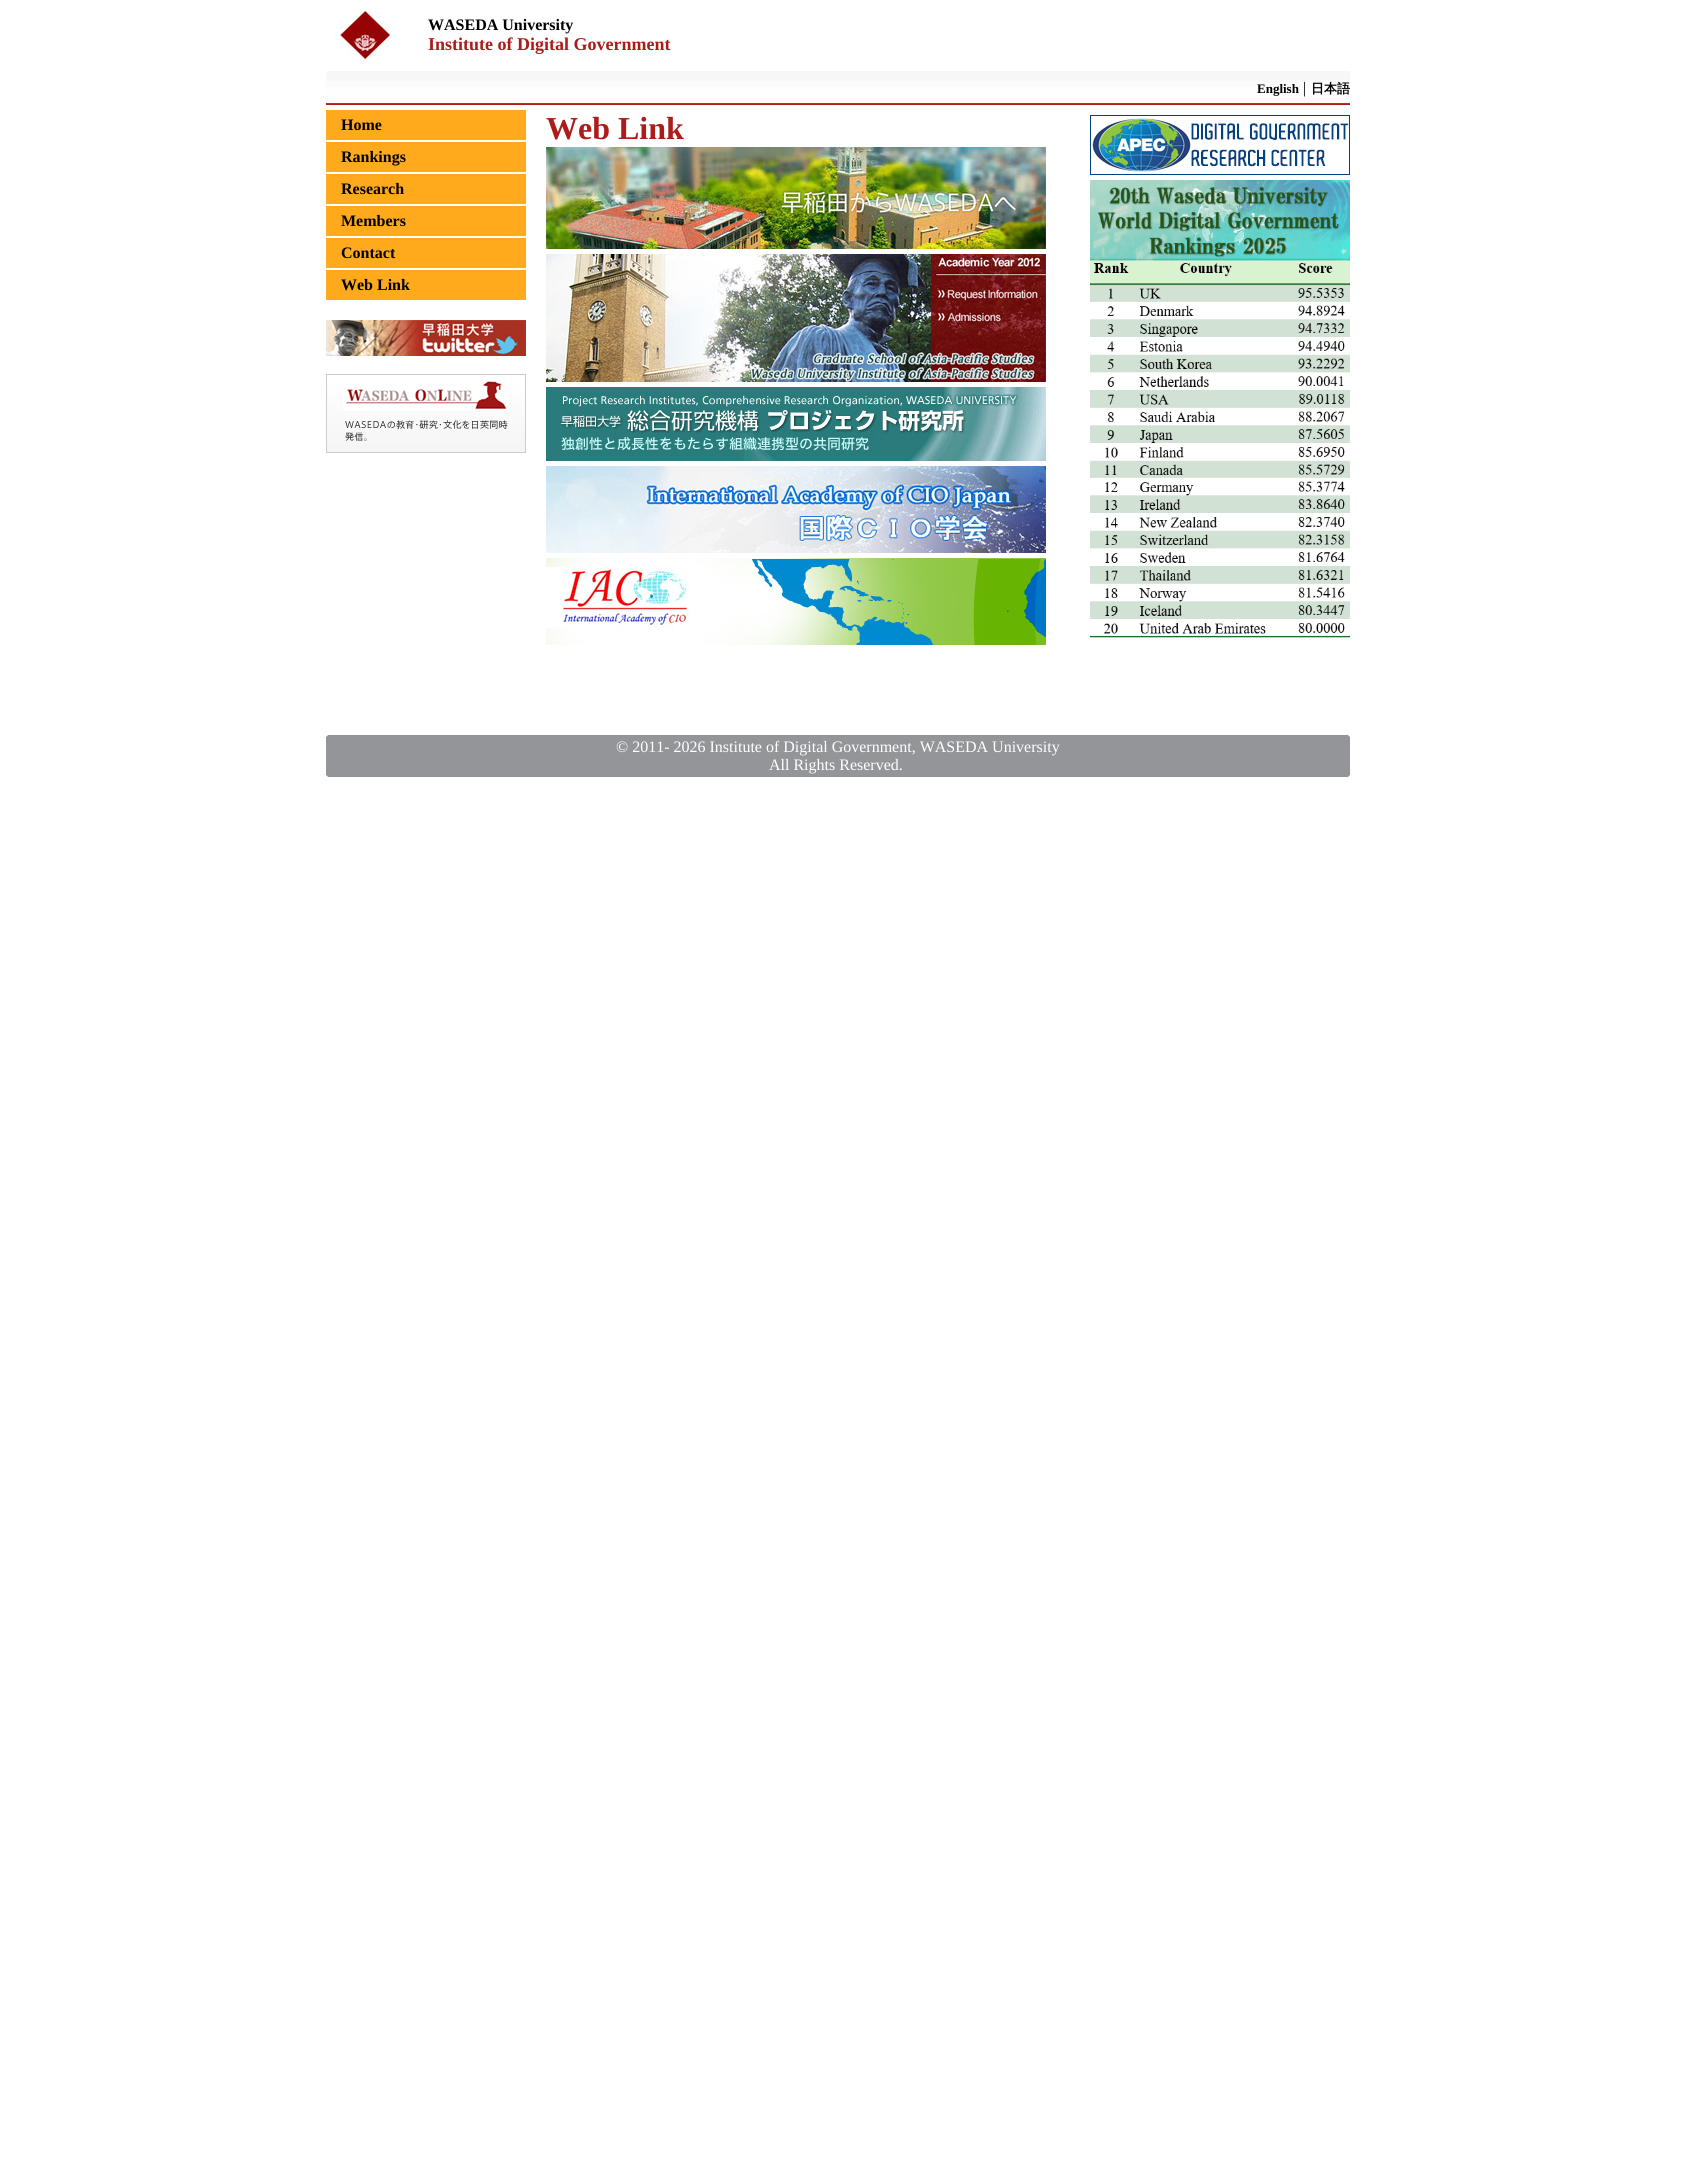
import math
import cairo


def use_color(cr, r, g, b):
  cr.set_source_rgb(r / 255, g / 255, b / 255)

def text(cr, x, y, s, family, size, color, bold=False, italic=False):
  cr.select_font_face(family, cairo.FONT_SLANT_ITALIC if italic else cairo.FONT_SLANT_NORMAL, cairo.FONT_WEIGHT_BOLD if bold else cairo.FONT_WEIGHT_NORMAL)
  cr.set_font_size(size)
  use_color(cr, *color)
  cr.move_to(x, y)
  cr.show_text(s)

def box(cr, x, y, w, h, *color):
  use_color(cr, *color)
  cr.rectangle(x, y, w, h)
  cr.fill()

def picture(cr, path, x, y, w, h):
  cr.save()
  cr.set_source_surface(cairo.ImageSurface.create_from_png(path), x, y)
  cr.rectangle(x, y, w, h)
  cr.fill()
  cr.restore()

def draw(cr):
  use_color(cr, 255, 255, 255)
  cr.paint()
  picture(cr, "img_01.png", 334, 8, 56, 56)
  picture(cr, "img_02.png", 326, 71, 1024, 34)
  box(cr, 326, 110, 200, 30, 255, 169, 28)
  box(cr, 326, 142, 200, 30, 255, 169, 28)
  box(cr, 326, 174, 200, 30, 255, 169, 28)
  box(cr, 326, 206, 200, 30, 255, 169, 28)
  box(cr, 326, 238, 200, 30, 255, 169, 28)
  box(cr, 326, 270, 200, 30, 255, 169, 28)
  picture(cr, "img_03.png", 326, 320, 200, 36)
  picture(cr, "img_04.png", 326, 374, 200, 79)
  picture(cr, "img_05.png", 546, 147, 500, 102)
  picture(cr, "img_06.png", 546, 254, 500, 128)
  picture(cr, "img_07.png", 546, 387, 500, 74)
  picture(cr, "img_08.png", 546, 466, 500, 87)
  picture(cr, "img_09.png", 546, 558, 500, 87)
  picture(cr, "img_10.png", 1090, 115, 260, 60)
  picture(cr, "img_11.png", 1090, 180, 260, 458)
  picture(cr, "img_12.png", 326, 735, 1024, 3)
  box(cr, 326, 738, 1024, 36, 147, 149, 152)
  picture(cr, "img_13.png", 326, 774, 1024, 3)
  text(cr, 428, 30, "WASEDA University", "Liberation Serif", 16, (0, 0, 0), bold=True)
  text(cr, 428, 50, "Institute of Digital Government", "Liberation Serif", 18, (172, 28, 26), bold=True)
  text(cr, 1257, 93, "English", "Liberation Serif", 13, (0, 0, 0), bold=True)
  text(cr, 1303, 93, "|", "Liberation Serif", 16, (0, 0, 0))
  text(cr, 1311, 93, "日本語", "WenQuanYi Zen Hei", 13, (0, 0, 0), bold=True)
  text(cr, 341, 130, "Home", "Liberation Serif", 16, (0, 0, 0), bold=True)
  text(cr, 341, 162, "Rankings", "Liberation Serif", 16, (0, 0, 0), bold=True)
  text(cr, 341, 194, "Research", "Liberation Serif", 16, (0, 0, 0), bold=True)
  text(cr, 341, 226, "Members", "Liberation Serif", 16, (0, 0, 0), bold=True)
  text(cr, 341, 258, "Contact", "Liberation Serif", 16, (0, 0, 0), bold=True)
  text(cr, 341, 290, "Web Link", "Liberation Serif", 16, (0, 0, 0), bold=True)
  text(cr, 546, 139, "Web Link", "Liberation Serif", 32, (172, 28, 26), bold=True)
  text(cr, 616, 752, "© 2011- 2026 Institute of Digital Government, WASEDA University", "Liberation Serif", 16, (255, 255, 255))
  text(cr, 769, 770, "All Rights Reserved.", "Liberation Serif", 16, (255, 255, 255))


surface = cairo.ImageSurface(cairo.FORMAT_RGB24, 1683, 2181)
cr = cairo.Context(surface)
options = cairo.FontOptions()
options.set_hint_metrics(cairo.HINT_METRICS_OFF)
options.set_hint_style(cairo.HINT_STYLE_NONE)
cr.set_font_options(options)
cr.set_miter_limit(4)
draw(cr)
surface.write_to_png("out.png")
